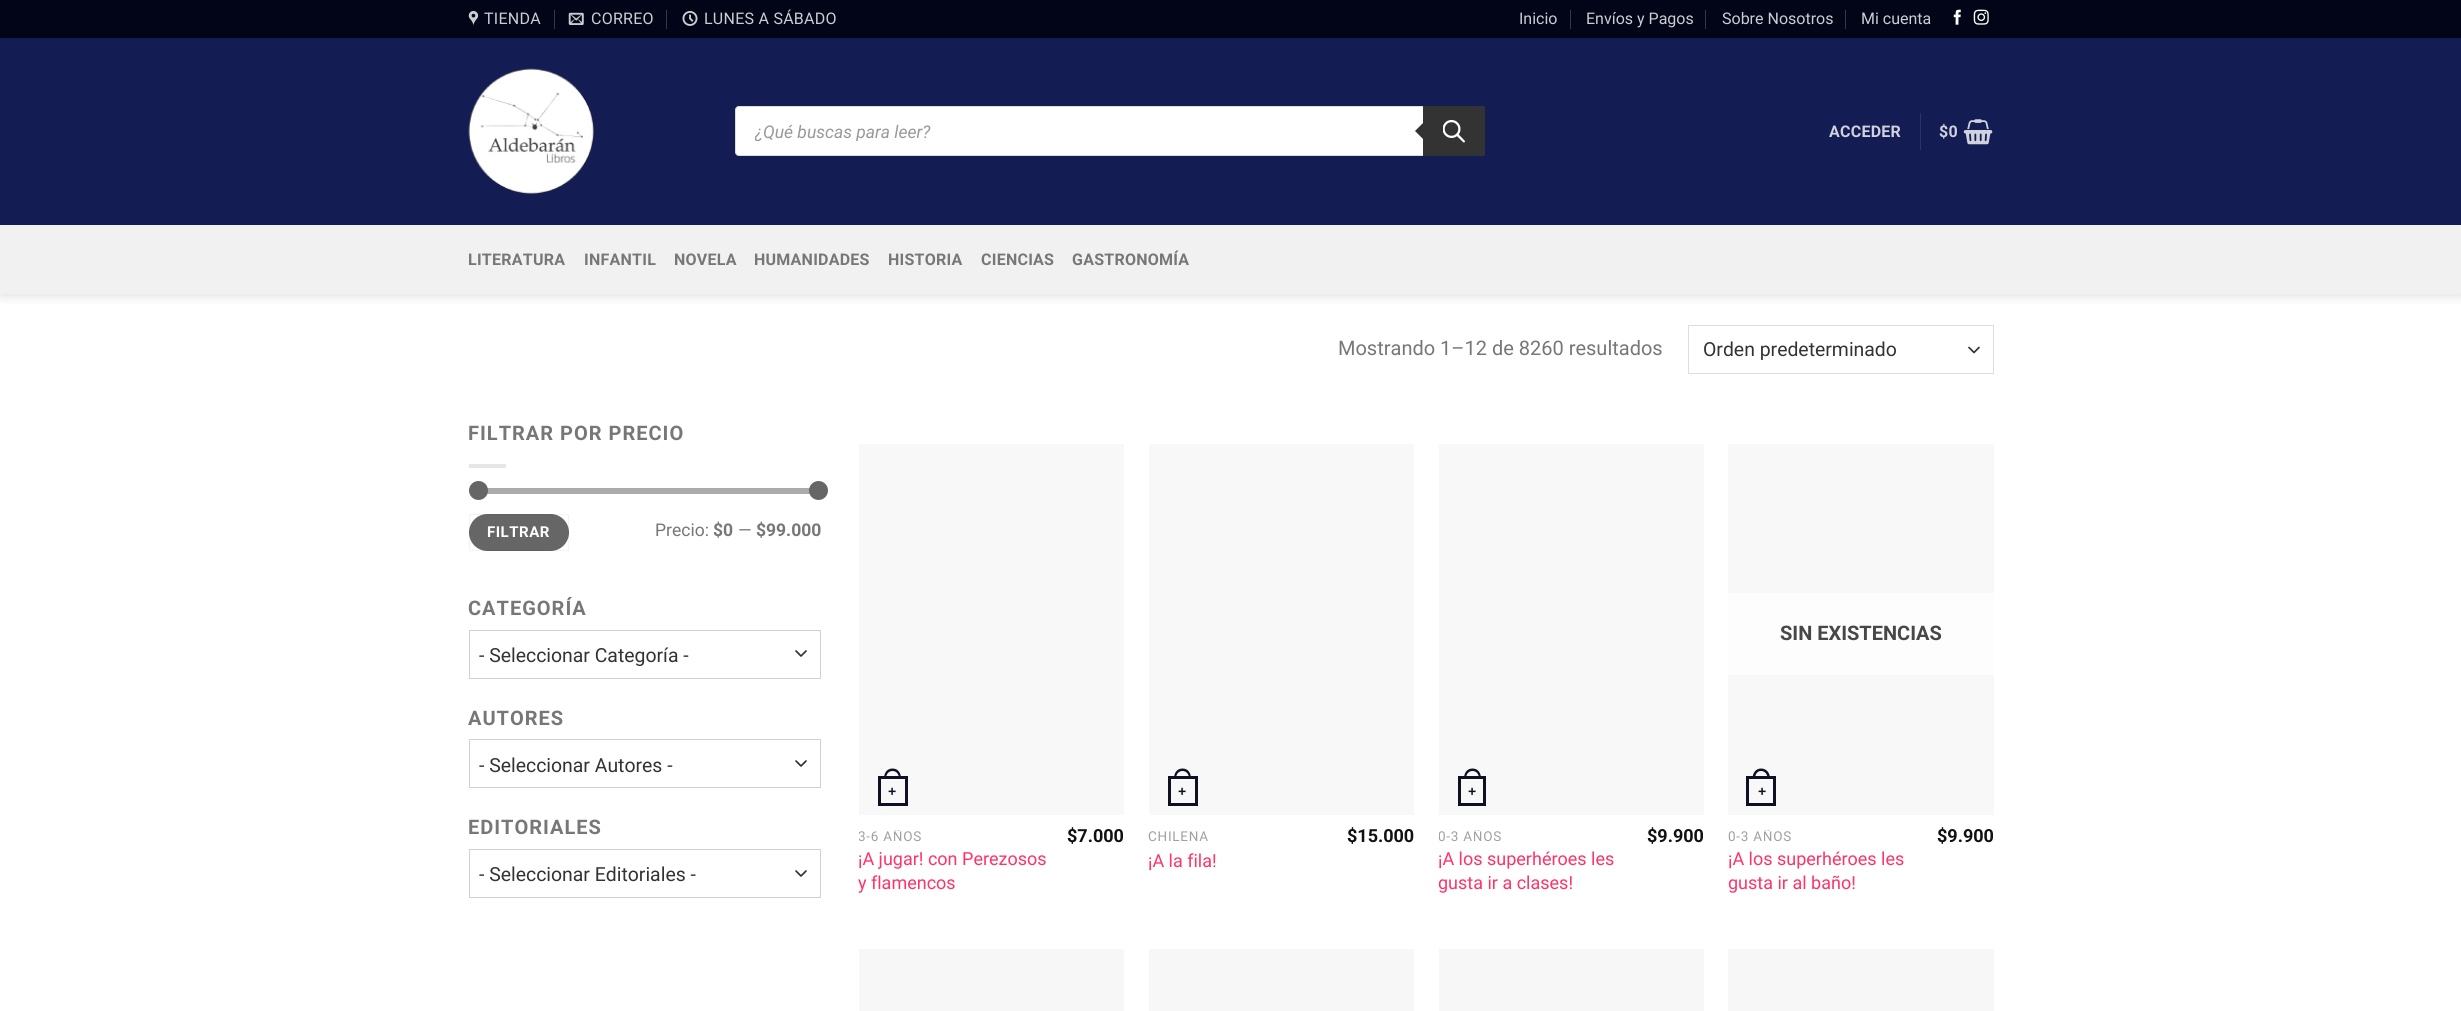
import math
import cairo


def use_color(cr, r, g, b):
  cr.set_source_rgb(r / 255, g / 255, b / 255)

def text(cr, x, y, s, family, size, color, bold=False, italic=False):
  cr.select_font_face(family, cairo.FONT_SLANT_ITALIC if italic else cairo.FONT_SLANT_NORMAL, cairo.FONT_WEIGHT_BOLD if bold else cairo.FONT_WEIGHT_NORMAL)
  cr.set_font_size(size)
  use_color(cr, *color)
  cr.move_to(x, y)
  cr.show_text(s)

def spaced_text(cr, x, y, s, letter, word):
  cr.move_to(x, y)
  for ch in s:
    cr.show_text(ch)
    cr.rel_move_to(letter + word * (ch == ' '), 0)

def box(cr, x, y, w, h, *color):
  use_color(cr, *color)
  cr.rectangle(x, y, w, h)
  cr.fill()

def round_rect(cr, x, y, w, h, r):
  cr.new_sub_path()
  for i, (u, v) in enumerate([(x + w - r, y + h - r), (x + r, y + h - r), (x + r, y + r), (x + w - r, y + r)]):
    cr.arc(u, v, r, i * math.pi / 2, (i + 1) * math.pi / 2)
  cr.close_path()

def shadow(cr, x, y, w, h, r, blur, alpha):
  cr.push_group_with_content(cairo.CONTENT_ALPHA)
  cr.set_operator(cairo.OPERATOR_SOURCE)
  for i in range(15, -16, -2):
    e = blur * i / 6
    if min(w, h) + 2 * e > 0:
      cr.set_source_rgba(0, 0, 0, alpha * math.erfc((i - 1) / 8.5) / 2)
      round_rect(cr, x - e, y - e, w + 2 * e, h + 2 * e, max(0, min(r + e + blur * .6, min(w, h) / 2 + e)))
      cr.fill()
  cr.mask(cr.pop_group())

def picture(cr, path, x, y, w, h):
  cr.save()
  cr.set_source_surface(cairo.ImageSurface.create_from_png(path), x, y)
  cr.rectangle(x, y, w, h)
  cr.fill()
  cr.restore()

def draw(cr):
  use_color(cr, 255, 255, 255)
  cr.paint()
  use_color(cr, 0, 0, 0)
  shadow(cr, 1, 1, 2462, 294, 0, 6, 0.15)
  box(cr, 0, 0, 2461, 38, 2, 5, 24)
  picture(cr, "img_01.png", 468, 10, 11, 16)
  box(cr, 554, 10, 1, 19, 53, 55, 70)
  picture(cr, "img_02.png", 568, 12, 16, 13)
  box(cr, 666, 10, 1, 19, 53, 55, 70)
  picture(cr, "img_03.png", 682, 11, 16, 15)
  box(cr, 1570, 10, 1, 19, 53, 55, 70)
  box(cr, 1705, 10, 1, 19, 53, 55, 70)
  box(cr, 1845, 10, 1, 19, 53, 55, 70)
  picture(cr, "img_04.png", 1953, 9, 8, 16)
  picture(cr, "img_05.png", 1973, 9, 16, 16)
  box(cr, 0, 38, 2461, 187, 20, 28, 84)
  picture(cr, "img_06.png", 468, 68, 126, 126)
  use_color(cr, 255, 255, 255)
  round_rect(cr, 735.5, 106.5, 749, 49, 3.5)
  cr.fill_preserve()
  use_color(cr, 221, 221, 221)
  cr.set_line_width(1)
  cr.stroke()
  use_color(cr, 51, 51, 51)
  cr.new_path()
  cr.move_to(1423, 106)
  cr.line_to(1482.5, 106)
  cr.curve_to(1484, 106, 1485, 107, 1485, 108.5)
  cr.line_to(1485, 153.5)
  cr.curve_to(1485, 155, 1484, 156, 1482.5, 156)
  cr.line_to(1423, 156)
  cr.close_path()
  cr.fill()
  cr.new_path()
  cr.move_to(1425, 121)
  cr.line_to(1425, 141)
  cr.line_to(1415, 131)
  cr.close_path()
  cr.fill()
  picture(cr, "img_07.png", 1443, 120, 22, 23)
  box(cr, 1920, 113, 1, 37, 44, 51, 101)
  picture(cr, "img_08.png", 1963, 119, 30, 26)
  box(cr, 0, 225, 2461, 69, 241, 241, 241)
  cr.new_path()
  cr.move_to(1969, 347.5)
  cr.line_to(1974, 352.5)
  cr.line_to(1979, 347.5)
  use_color(cr, 51, 51, 51)
  cr.set_line_width(1.7)
  cr.set_line_cap(cairo.LINE_CAP_ROUND)
  cr.set_line_join(cairo.LINE_JOIN_ROUND)
  cr.stroke()
  cr.rectangle(1688.5, 325.5, 305, 48)
  use_color(cr, 221, 221, 221)
  cr.set_line_width(1)
  cr.set_line_cap(cairo.LINE_CAP_BUTT)
  cr.set_line_join(cairo.LINE_JOIN_MITER)
  cr.stroke()
  box(cr, 469, 464, 37, 4, 230, 230, 230)
  use_color(cr, 241, 241, 241)
  round_rect(cr, 469, 488, 352, 6, 3)
  cr.fill()
  cr.set_source_rgba(0.4, 0.4, 0.4, 0.5)
  round_rect(cr, 469, 488, 352, 6, 3)
  cr.fill()
  use_color(cr, 102, 102, 102)
  cr.arc(478.5, 490.5, 9.5, 0, 2 * math.pi)
  cr.fill()
  cr.arc(818.5, 490.5, 9.5, 0, 2 * math.pi)
  cr.fill()
  round_rect(cr, 469, 514, 100, 37, 18.5)
  cr.fill()
  cr.rectangle(469.5, 514.5, 99, 36)
  cr.set_source_rgba(0, 0, 0, 0.05)
  cr.stroke()
  cr.new_path()
  cr.move_to(796, 651)
  cr.line_to(801, 656)
  cr.line_to(806, 651)
  use_color(cr, 51, 51, 51)
  cr.set_line_width(1.7)
  cr.set_line_cap(cairo.LINE_CAP_ROUND)
  cr.set_line_join(cairo.LINE_JOIN_ROUND)
  cr.stroke()
  cr.rectangle(469.5, 630.5, 351, 48)
  use_color(cr, 204, 208, 220)
  cr.set_line_width(1)
  cr.set_line_cap(cairo.LINE_CAP_BUTT)
  cr.set_line_join(cairo.LINE_JOIN_MITER)
  cr.stroke()
  cr.new_path()
  cr.move_to(796, 761)
  cr.line_to(801, 766)
  cr.line_to(806, 761)
  use_color(cr, 51, 51, 51)
  cr.set_line_width(1.7)
  cr.set_line_cap(cairo.LINE_CAP_ROUND)
  cr.set_line_join(cairo.LINE_JOIN_ROUND)
  cr.stroke()
  cr.rectangle(469.5, 739.5, 351, 48)
  use_color(cr, 204, 208, 220)
  cr.set_line_width(1)
  cr.set_line_cap(cairo.LINE_CAP_BUTT)
  cr.set_line_join(cairo.LINE_JOIN_MITER)
  cr.stroke()
  cr.new_path()
  cr.move_to(796, 871)
  cr.line_to(801, 876)
  cr.line_to(806, 871)
  use_color(cr, 51, 51, 51)
  cr.set_line_width(1.7)
  cr.set_line_cap(cairo.LINE_CAP_ROUND)
  cr.set_line_join(cairo.LINE_JOIN_ROUND)
  cr.stroke()
  cr.rectangle(469.5, 849.5, 351, 48)
  use_color(cr, 204, 208, 220)
  cr.set_line_width(1)
  cr.set_line_cap(cairo.LINE_CAP_BUTT)
  cr.set_line_join(cairo.LINE_JOIN_MITER)
  cr.stroke()
  box(cr, 859, 444, 265, 371, 248, 248, 248)
  cr.rectangle(879.5, 777.5, 27, 27)
  use_color(cr, 14, 17, 35)
  cr.set_line_width(3)
  cr.stroke()
  cr.set_fill_rule(cairo.FILL_RULE_EVEN_ODD)
  cr.new_path()
  cr.move_to(892.5, 768.5)
  cr.curve_to(898.5, 768.5, 901, 773.5, 901, 778.5)
  cr.line_to(884, 778.5)
  cr.curve_to(884, 773.5, 886.5, 768.5, 892.5, 768.5)
  cr.close_path()
  cr.move_to(892.5, 771)
  cr.curve_to(897, 771, 899, 775, 899, 778.5)
  cr.line_to(886, 778.5)
  cr.curve_to(886, 775, 888, 771, 892.5, 771)
  cr.close_path()
  cr.fill()
  box(cr, 1149, 444, 265, 371, 248, 248, 248)
  cr.rectangle(1169.5, 777.5, 27, 27)
  use_color(cr, 14, 17, 35)
  cr.stroke()
  cr.new_path()
  cr.move_to(1182.5, 768.5)
  cr.curve_to(1188.5, 768.5, 1191, 773.5, 1191, 778.5)
  cr.line_to(1174, 778.5)
  cr.curve_to(1174, 773.5, 1176.5, 768.5, 1182.5, 768.5)
  cr.close_path()
  cr.move_to(1182.5, 771)
  cr.curve_to(1187, 771, 1189, 775, 1189, 778.5)
  cr.line_to(1176, 778.5)
  cr.curve_to(1176, 775, 1178, 771, 1182.5, 771)
  cr.close_path()
  cr.fill()
  box(cr, 1439, 444, 265, 371, 248, 248, 248)
  cr.rectangle(1459.5, 777.5, 25, 27)
  use_color(cr, 14, 17, 35)
  cr.stroke()
  cr.new_path()
  cr.move_to(1472.5, 768.5)
  cr.curve_to(1478.5, 768.5, 1481, 773.5, 1481, 778.5)
  cr.line_to(1464, 778.5)
  cr.curve_to(1464, 773.5, 1466.5, 768.5, 1472.5, 768.5)
  cr.close_path()
  cr.move_to(1472.5, 771)
  cr.curve_to(1477, 771, 1479, 775, 1479, 778.5)
  cr.line_to(1466, 778.5)
  cr.curve_to(1466, 775, 1468, 771, 1472.5, 771)
  cr.close_path()
  cr.fill()
  box(cr, 1728, 444, 266, 371, 248, 248, 248)
  box(cr, 1728, 593, 266, 82, 253, 253, 253)
  cr.rectangle(1747.5, 777.5, 27, 27)
  use_color(cr, 14, 17, 35)
  cr.stroke()
  cr.new_path()
  cr.move_to(1761, 768.5)
  cr.curve_to(1767, 768.5, 1770, 773.5, 1770, 778.5)
  cr.line_to(1752.5, 778.5)
  cr.curve_to(1752.5, 773.5, 1755.5, 768.5, 1761, 768.5)
  cr.close_path()
  cr.move_to(1761, 771)
  cr.curve_to(1765.5, 771, 1767.5, 775, 1767.5, 778.5)
  cr.line_to(1755, 778.5)
  cr.curve_to(1755, 775, 1757, 771, 1761, 771)
  cr.close_path()
  cr.fill()
  box(cr, 859, 949, 265, 62, 247, 247, 247)
  box(cr, 1149, 949, 265, 62, 247, 247, 247)
  box(cr, 1439, 949, 265, 62, 247, 247, 247)
  box(cr, 1728, 949, 266, 62, 247, 247, 247)
  cr.select_font_face("Roboto")
  cr.set_font_size(16)
  use_color(cr, 204, 205, 209)
  spaced_text(cr, 484, 24, "TIENDA", 0.25, 0)
  spaced_text(cr, 591, 24, "CORREO", 0.25, 0)
  spaced_text(cr, 704, 24, "LUNES A SÁBADO", 0.25, 0)
  text(cr, 1519, 24, "Inicio", "Roboto", 16, (204, 205, 209))
  text(cr, 1586, 24, "Envíos y Pagos", "Roboto", 16, (204, 205, 209))
  text(cr, 1722, 24, "Sobre Nosotros", "Roboto", 16, (204, 205, 209))
  text(cr, 1861, 24, "Mi cuenta", "Roboto", 16, (204, 205, 209))
  cr.save()
  cr.set_fill_rule(cairo.FILL_RULE_WINDING)
  cr.rectangle(755, 121, 710, 20)
  cr.clip()
  text(cr, 755, 138, "¿Qué buscas para leer?", "Roboto", 17.5, (153, 153, 153), italic=True)
  cr.restore()
  cr.select_font_face("Roboto", cairo.FONT_SLANT_NORMAL, cairo.FONT_WEIGHT_BOLD)
  use_color(cr, 208, 210, 221)
  spaced_text(cr, 1829, 137, "ACCEDER", 0.25, 0)
  spaced_text(cr, 1939, 137, "$0", 0.25, 0)
  use_color(cr, 119, 119, 119)
  spaced_text(cr, 468, 265, "LITERATURA", 0.25, 0)
  spaced_text(cr, 584, 265, "INFANTIL", 0.25, 0)
  spaced_text(cr, 674, 265, "NOVELA", 0.25, 0)
  spaced_text(cr, 754, 265, "HUMANIDADES", 0.25, 0)
  spaced_text(cr, 888, 265, "HISTORIA", 0.25, 0)
  spaced_text(cr, 981, 265, "CIENCIAS", 0.25, 0)
  spaced_text(cr, 1072, 265, "GASTRONOMÍA", 0.25, 0)
  text(cr, 1338, 355, "Mostrando 1–12 de 8260 resultados", "Roboto", 20, (119, 119, 119))
  text(cr, 1703, 356, "Orden predeterminado", "Roboto", 19.4, (51, 51, 51))
  cr.select_font_face("Roboto", cairo.FONT_SLANT_NORMAL, cairo.FONT_WEIGHT_BOLD)
  cr.set_font_size(20)
  use_color(cr, 119, 119, 119)
  spaced_text(cr, 468, 440, "FILTRAR POR PRECIO", 1, 0)
  cr.set_font_size(15)
  use_color(cr, 255, 255, 255)
  spaced_text(cr, 487, 537, "FILTRAR", 0.5, 0)
  text(cr, 655, 536, "Precio:", "Roboto", 17.5, (119, 119, 119))
  text(cr, 713, 536, "$0", "Roboto", 17.5, (119, 119, 119), bold=True)
  text(cr, 738, 536, "—", "Roboto", 17.5, (119, 119, 119))
  text(cr, 756, 536, "$99.000", "Roboto", 17.5, (119, 119, 119), bold=True)
  cr.set_font_size(20)
  spaced_text(cr, 468, 615, "CATEGORÍA", 1, 0)
  text(cr, 479, 662, "- Seleccionar Categoría -", "Roboto", 19.4, (51, 51, 51))
  cr.select_font_face("Roboto", cairo.FONT_SLANT_NORMAL, cairo.FONT_WEIGHT_BOLD)
  cr.set_font_size(20)
  use_color(cr, 119, 119, 119)
  spaced_text(cr, 468, 725, "AUTORES", 1, 0)
  text(cr, 479, 772, "- Seleccionar Autores -", "Roboto", 19.4, (51, 51, 51))
  cr.select_font_face("Roboto", cairo.FONT_SLANT_NORMAL, cairo.FONT_WEIGHT_BOLD)
  cr.set_font_size(20)
  use_color(cr, 119, 119, 119)
  spaced_text(cr, 468, 834, "EDITORIALES", 1, 0)
  text(cr, 479, 881, "- Seleccionar Editoriales -", "Roboto", 19.4, (51, 51, 51))
  text(cr, 888, 796, "+", "Liberation Sans", 14, (14, 17, 35), bold=True)
  cr.save()
  cr.set_fill_rule(cairo.FILL_RULE_WINDING)
  cr.rectangle(859, 830, 190, 15)
  cr.clip()
  cr.select_font_face("Roboto")
  cr.set_font_size(13.5)
  use_color(cr, 160, 160, 160)
  spaced_text(cr, 858, 841, "3-6 AÑOS", 0.75, 0)
  cr.restore()
  text(cr, 858, 865, "¡A jugar! con Perezosos", "Roboto", 18, (255, 51, 104))
  text(cr, 858, 889, "y flamencos", "Roboto", 18, (255, 51, 104))
  text(cr, 1067, 842, "$7.000", "Roboto", 18, (17, 17, 17), bold=True)
  text(cr, 1178, 796, "+", "Liberation Sans", 14, (14, 17, 35), bold=True)
  cr.select_font_face("Roboto")
  cr.set_font_size(13.5)
  use_color(cr, 160, 160, 160)
  spaced_text(cr, 1148, 841, "CHILENA", 0.75, 0)
  text(cr, 1148, 867, "¡A la fila!", "Roboto", 18, (255, 51, 104))
  text(cr, 1347, 842, "$15.000", "Roboto", 18, (17, 17, 17), bold=True)
  text(cr, 1468, 796, "+", "Liberation Sans", 14, (14, 17, 35), bold=True)
  cr.save()
  cr.set_fill_rule(cairo.FILL_RULE_WINDING)
  cr.rectangle(1439, 830, 189, 15)
  cr.clip()
  cr.select_font_face("Roboto")
  cr.set_font_size(13.5)
  use_color(cr, 160, 160, 160)
  spaced_text(cr, 1438, 841, "0-3 AÑOS", 0.75, 0)
  cr.restore()
  text(cr, 1438, 865, "¡A los superhéroes les", "Roboto", 18, (255, 51, 104))
  text(cr, 1438, 889, "gusta ir a clases!", "Roboto", 18, (255, 51, 104))
  text(cr, 1647, 842, "$9.900", "Roboto", 18, (17, 17, 17), bold=True)
  text(cr, 1780, 640, "SIN EXISTENCIAS", "Roboto", 20, (71, 71, 71), bold=True)
  text(cr, 1758, 796, "+", "Liberation Sans", 14, (14, 17, 35), bold=True)
  cr.save()
  cr.set_fill_rule(cairo.FILL_RULE_WINDING)
  cr.rectangle(1728, 830, 190, 15)
  cr.clip()
  cr.select_font_face("Roboto")
  cr.set_font_size(13.5)
  use_color(cr, 160, 160, 160)
  spaced_text(cr, 1728, 841, "0-3 AÑOS", 0.75, 0)
  cr.restore()
  text(cr, 1728, 865, "¡A los superhéroes les", "Roboto", 18, (255, 51, 104))
  text(cr, 1728, 889, "gusta ir al baño!", "Roboto", 18, (255, 51, 104))
  text(cr, 1937, 842, "$9.900", "Roboto", 18, (17, 17, 17), bold=True)


surface = cairo.ImageSurface(cairo.FORMAT_RGB24, 2461, 1011)
cr = cairo.Context(surface)
options = cairo.FontOptions()
options.set_hint_metrics(cairo.HINT_METRICS_OFF)
options.set_hint_style(cairo.HINT_STYLE_NONE)
cr.set_font_options(options)
cr.set_miter_limit(4)
draw(cr)
surface.write_to_png("out.png")
